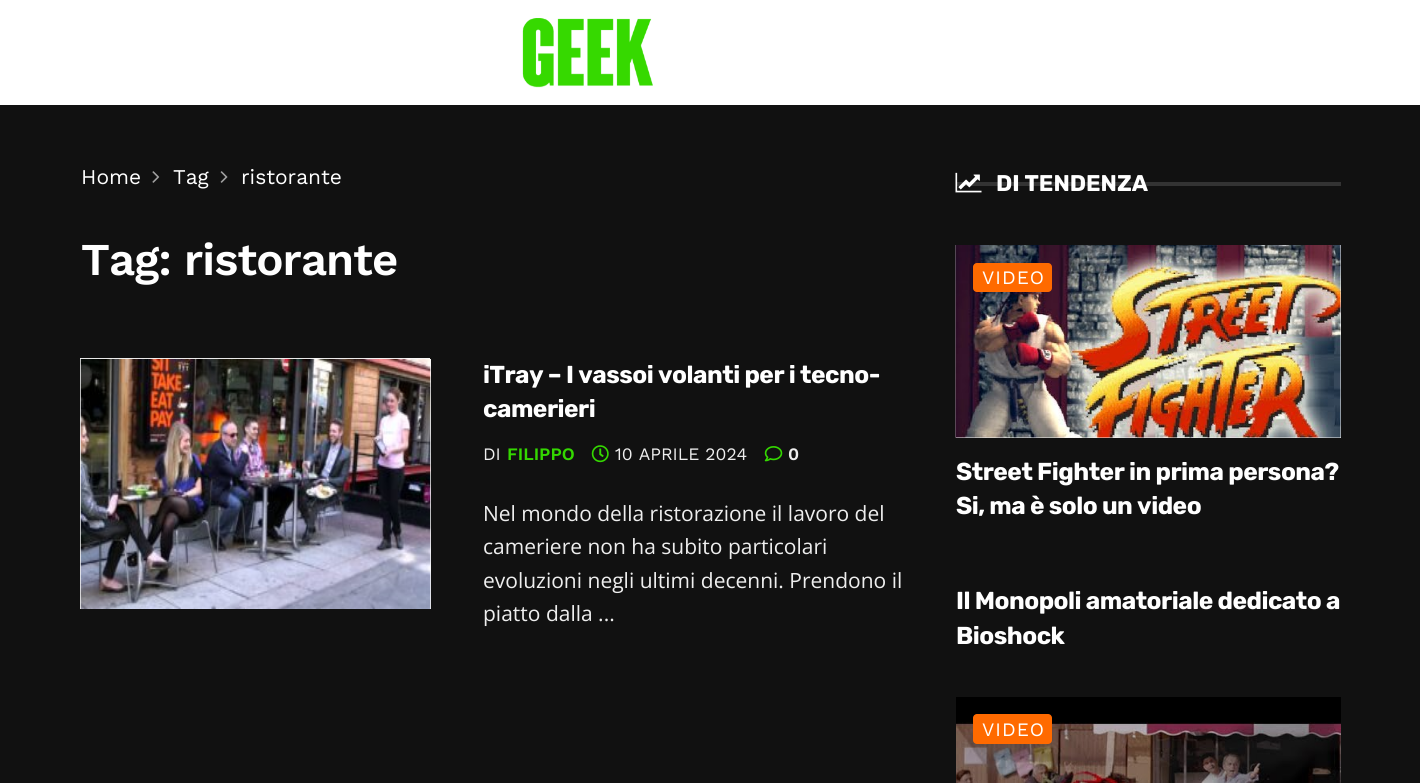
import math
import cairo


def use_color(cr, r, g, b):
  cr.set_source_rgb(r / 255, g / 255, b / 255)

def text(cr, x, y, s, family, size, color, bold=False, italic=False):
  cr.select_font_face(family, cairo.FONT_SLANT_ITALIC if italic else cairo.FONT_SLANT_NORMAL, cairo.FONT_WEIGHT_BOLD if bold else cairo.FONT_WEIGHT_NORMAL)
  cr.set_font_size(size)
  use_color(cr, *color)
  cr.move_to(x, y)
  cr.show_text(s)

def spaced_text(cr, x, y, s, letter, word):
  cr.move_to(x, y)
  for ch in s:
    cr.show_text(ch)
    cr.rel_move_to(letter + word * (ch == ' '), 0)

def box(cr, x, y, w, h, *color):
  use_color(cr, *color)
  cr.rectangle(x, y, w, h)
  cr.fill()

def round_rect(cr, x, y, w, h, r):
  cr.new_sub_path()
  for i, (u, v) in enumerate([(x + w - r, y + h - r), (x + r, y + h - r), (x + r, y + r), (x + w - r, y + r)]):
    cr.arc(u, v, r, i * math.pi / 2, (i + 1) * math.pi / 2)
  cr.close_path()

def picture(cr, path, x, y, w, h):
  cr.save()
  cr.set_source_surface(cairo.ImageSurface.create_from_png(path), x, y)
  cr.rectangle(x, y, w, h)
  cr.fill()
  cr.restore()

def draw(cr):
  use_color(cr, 17, 17, 17)
  cr.paint()
  box(cr, 0, 0, 1420, 105, 255, 255, 255)
  picture(cr, "img_01.png", 522, 18, 131, 70)
  picture(cr, "img_02.png", 152, 171, 8, 12)
  picture(cr, "img_03.png", 220, 171, 8, 12)
  box(cr, 430, 359, 1, 250, 247, 247, 247)
  box(cr, 80, 358, 350, 251, 247, 247, 247)
  picture(cr, "img_04.png", 80, 358, 351, 251)
  picture(cr, "img_05.png", 591, 445, 18, 18)
  picture(cr, "img_06.png", 764, 446, 19, 16)
  box(cr, 956, 182, 385, 4, 51, 51, 51)
  picture(cr, "img_07.png", 955, 172, 27, 21)
  box(cr, 956, 245, 385, 193, 247, 247, 247)
  picture(cr, "img_08.png", 955, 245, 1, 193)
  picture(cr, "img_09.png", 955, 245, 386, 193)
  use_color(cr, 255, 106, 0)
  round_rect(cr, 973, 263, 79, 29, 4)
  cr.fill()
  picture(cr, "img_10.png", 956, 697, 385, 86)
  round_rect(cr, 973, 714, 79, 30, 4)
  cr.fill()
  text(cr, 81, 184, "Home", "Work Sans", 21, (255, 255, 255))
  text(cr, 173, 184, "Tag", "Work Sans", 21, (255, 255, 255))
  text(cr, 241, 184, "ristorante", "Work Sans", 21, (255, 255, 255))
  cr.select_font_face("Work Sans SemiBold")
  cr.set_font_size(45.5)
  spaced_text(cr, 81, 275, "Tag: ristorante", -0.9, 0)
  cr.select_font_face("Rubik", cairo.FONT_SLANT_NORMAL, cairo.FONT_WEIGHT_BOLD)
  cr.set_font_size(24.5)
  spaced_text(cr, 483, 383, "iTray – I vassoi volanti per i tecno-", -0.5, 0)
  spaced_text(cr, 483, 417, "camerieri", -0.5, 0)
  text(cr, 483, 460, "DI", "Work Sans", 17.5, (238, 238, 238))
  text(cr, 507, 460, "FILIPPO", "Work Sans SemiBold", 17.5, (52, 216, 0))
  text(cr, 615, 460, "10 APRILE 2024", "Work Sans", 17.5, (238, 238, 238))
  text(cr, 788, 460, "0", "Work Sans SemiBold", 17.5, (238, 238, 238))
  text(cr, 483, 521, "Nel mondo della ristorazione il lavoro del", "Open Sans", 21, (238, 238, 238))
  text(cr, 483, 554, "cameriere non ha subito particolari", "Open Sans", 21, (238, 238, 238))
  text(cr, 483, 588, "evoluzioni negli ultimi decenni. Prendono il", "Open Sans", 21, (238, 238, 238))
  text(cr, 483, 621, "piatto dalla ...", "Open Sans", 21, (238, 238, 238))
  text(cr, 996, 191, "DI TENDENZA", "Rubik", 22.75, (255, 255, 255), bold=True)
  cr.select_font_face("Work Sans")
  cr.set_font_size(19)
  spaced_text(cr, 982, 284, "VIDEO", 1, 0)
  cr.select_font_face("Rubik", cairo.FONT_SLANT_NORMAL, cairo.FONT_WEIGHT_BOLD)
  cr.set_font_size(24.5)
  spaced_text(cr, 956, 480, "Street Fighter in prima persona?", -0.5, 0)
  spaced_text(cr, 956, 514, "Si, ma è solo un video", -0.5, 0)
  spaced_text(cr, 956, 609, "Il Monopoli amatoriale dedicato a", -0.5, 0)
  spaced_text(cr, 956, 644, "Bioshock", -0.5, 0)
  cr.select_font_face("Work Sans")
  cr.set_font_size(19)
  spaced_text(cr, 982, 736, "VIDEO", 1, 0)


surface = cairo.ImageSurface(cairo.FORMAT_RGB24, 1420, 783)
cr = cairo.Context(surface)
options = cairo.FontOptions()
options.set_hint_metrics(cairo.HINT_METRICS_OFF)
options.set_hint_style(cairo.HINT_STYLE_NONE)
cr.set_font_options(options)
cr.set_miter_limit(4)
draw(cr)
surface.write_to_png("out.png")
